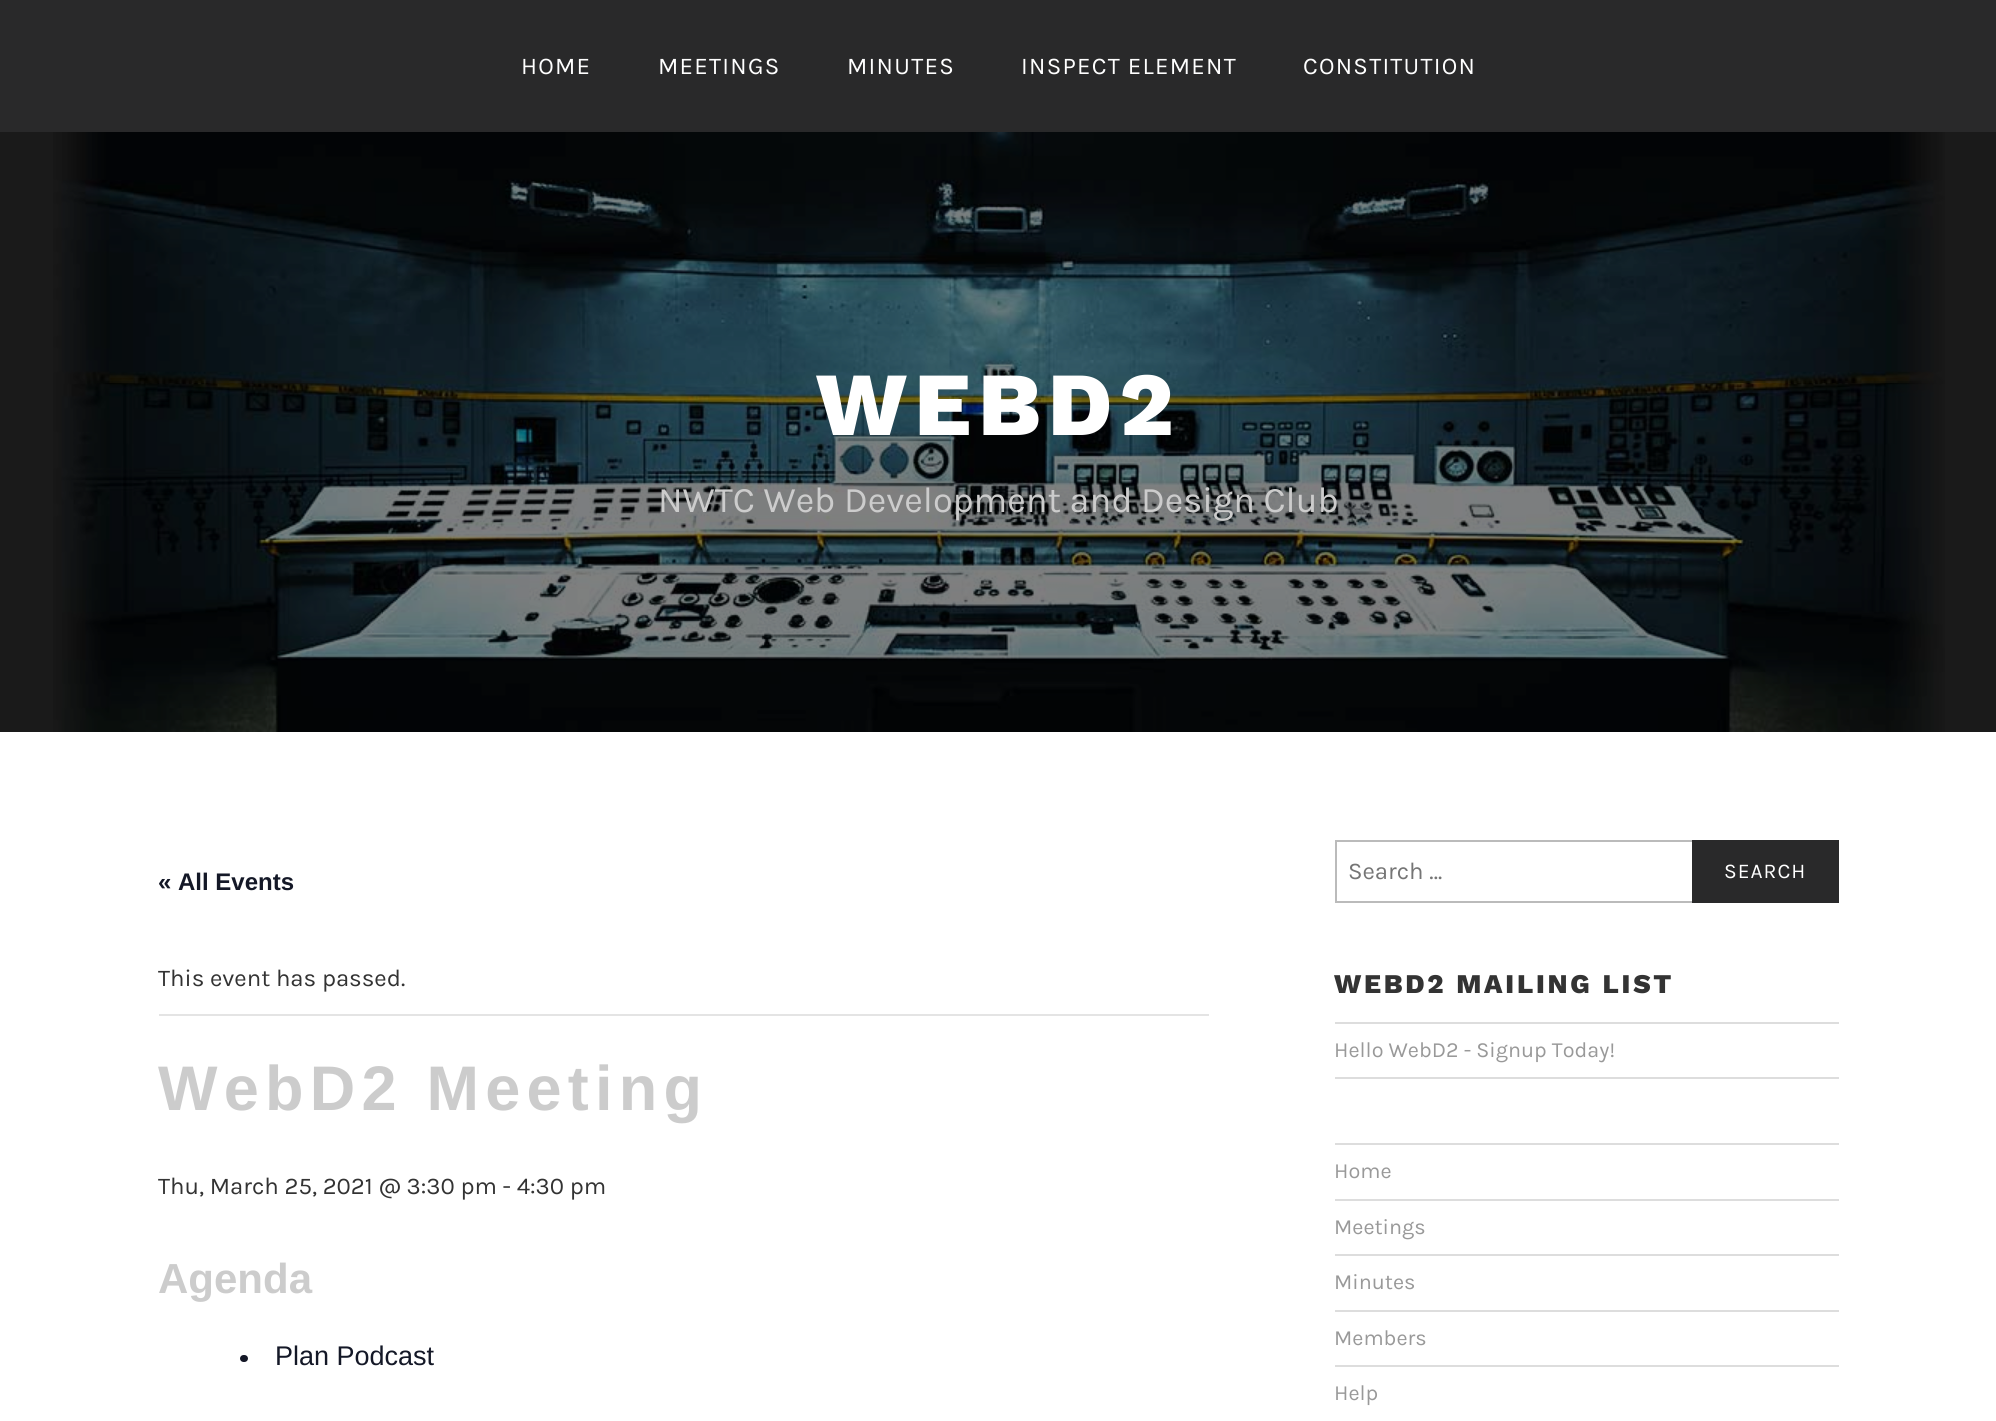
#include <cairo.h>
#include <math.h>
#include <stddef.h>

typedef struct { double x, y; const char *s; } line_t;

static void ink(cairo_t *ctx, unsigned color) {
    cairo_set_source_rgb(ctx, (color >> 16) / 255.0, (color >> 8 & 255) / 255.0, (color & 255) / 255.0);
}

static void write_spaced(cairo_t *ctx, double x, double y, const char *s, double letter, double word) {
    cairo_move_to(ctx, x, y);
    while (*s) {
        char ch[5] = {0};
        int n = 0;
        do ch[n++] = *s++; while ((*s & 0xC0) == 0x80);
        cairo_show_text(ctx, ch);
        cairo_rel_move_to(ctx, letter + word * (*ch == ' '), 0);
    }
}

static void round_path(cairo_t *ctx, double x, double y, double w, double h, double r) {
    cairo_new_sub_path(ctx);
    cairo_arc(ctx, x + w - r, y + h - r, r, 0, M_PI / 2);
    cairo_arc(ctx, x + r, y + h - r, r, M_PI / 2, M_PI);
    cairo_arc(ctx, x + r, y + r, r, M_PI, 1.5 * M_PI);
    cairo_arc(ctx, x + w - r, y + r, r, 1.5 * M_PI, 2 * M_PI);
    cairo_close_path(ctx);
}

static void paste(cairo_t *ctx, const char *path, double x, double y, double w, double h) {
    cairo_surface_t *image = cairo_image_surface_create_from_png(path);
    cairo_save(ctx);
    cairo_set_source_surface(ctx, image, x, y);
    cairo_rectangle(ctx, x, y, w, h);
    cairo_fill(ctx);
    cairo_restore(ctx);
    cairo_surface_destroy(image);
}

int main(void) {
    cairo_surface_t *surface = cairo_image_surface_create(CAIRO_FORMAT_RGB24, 1996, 1421);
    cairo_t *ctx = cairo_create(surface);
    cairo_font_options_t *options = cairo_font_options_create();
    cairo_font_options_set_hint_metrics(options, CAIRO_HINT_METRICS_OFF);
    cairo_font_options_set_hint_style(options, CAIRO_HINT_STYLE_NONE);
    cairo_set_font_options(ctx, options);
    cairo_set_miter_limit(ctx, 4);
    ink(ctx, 0xFFFFFF);
    cairo_paint(ctx);
    ink(ctx, 0x1A1A1A);
    cairo_rectangle(ctx, 0, 132, 1996, 600);
    cairo_fill(ctx);
    ink(ctx, 0x29292A);
    cairo_rectangle(ctx, 0, 0, 1996, 132);
    cairo_fill(ctx);
    cairo_select_font_face(ctx, "Karla", CAIRO_FONT_SLANT_NORMAL, CAIRO_FONT_WEIGHT_NORMAL);
    cairo_set_font_size(ctx, 24);
    ink(ctx, 0xFFFFFF);
    {
        static const line_t items[] = {
            {521, 74, "HOME"},
            {658, 74, "MEETINGS"},
            {847, 74, "MINUTES"},
            {1021, 74, "INSPECT ELEMENT"},
            {1303, 74, "CONSTITUTION"},
        };
        for (size_t i = 0; i < sizeof items / sizeof *items; i++) {
            write_spaced(ctx, items[i].x, items[i].y, items[i].s, 1.25, 0);
        }
    }
    paste(ctx, "media/1.png", 53, 132, 1892, 600);
    cairo_select_font_face(ctx, "Work Sans ExtraBold", CAIRO_FONT_SLANT_NORMAL, CAIRO_FONT_WEIGHT_NORMAL);
    cairo_set_font_size(ctx, 90);
    write_spaced(ctx, 816, 435, "WEBD2", 7.25, 0);
    cairo_select_font_face(ctx, "Karla", CAIRO_FONT_SLANT_NORMAL, CAIRO_FONT_WEIGHT_NORMAL);
    cairo_set_font_size(ctx, 36);
    ink(ctx, 0xCCCCCC);
    cairo_move_to(ctx, 658, 512);
    cairo_show_text(ctx, "NWTC Web Development and Design Club");
    cairo_select_font_face(ctx, "Liberation Sans", CAIRO_FONT_SLANT_NORMAL, CAIRO_FONT_WEIGHT_BOLD);
    cairo_set_font_size(ctx, 24);
    ink(ctx, 0x141827);
    cairo_move_to(ctx, 158, 890);
    cairo_show_text(ctx, "« All Events");
    ink(ctx, 0xE4E4E4);
    cairo_rectangle(ctx, 159, 1014, 1050, 2);
    cairo_fill(ctx);
    cairo_select_font_face(ctx, "Karla", CAIRO_FONT_SLANT_NORMAL, CAIRO_FONT_WEIGHT_NORMAL);
    ink(ctx, 0x333333);
    cairo_move_to(ctx, 158, 986);
    cairo_show_text(ctx, "This event has passed.");
    cairo_select_font_face(ctx, "Liberation Sans", CAIRO_FONT_SLANT_NORMAL, CAIRO_FONT_WEIGHT_BOLD);
    cairo_set_font_size(ctx, 63);
    ink(ctx, 0xCCCCCC);
    write_spaced(ctx, 158, 1110, "WebD2 Meeting", 6.25, 0);
    cairo_select_font_face(ctx, "Karla", CAIRO_FONT_SLANT_NORMAL, CAIRO_FONT_WEIGHT_NORMAL);
    cairo_set_font_size(ctx, 24);
    ink(ctx, 0x333333);
    cairo_move_to(ctx, 158, 1194);
    cairo_show_text(ctx, "Thu, March 25, 2021 @ 3:30 pm - 4:30 pm");
    cairo_select_font_face(ctx, "Liberation Sans", CAIRO_FONT_SLANT_NORMAL, CAIRO_FONT_WEIGHT_BOLD);
    cairo_set_font_size(ctx, 42);
    ink(ctx, 0xCCCCCC);
    cairo_move_to(ctx, 158, 1293);
    cairo_show_text(ctx, "Agenda");
    ink(ctx, 0x141827);
    round_path(ctx, 240, 1355, 8, 7, 3.5);
    cairo_fill(ctx);
    cairo_select_font_face(ctx, "Liberation Sans", CAIRO_FONT_SLANT_NORMAL, CAIRO_FONT_WEIGHT_NORMAL);
    cairo_set_font_size(ctx, 27);
    cairo_move_to(ctx, 275, 1365);
    cairo_show_text(ctx, "Plan Podcast");
    cairo_rectangle(ctx, 1336, 841, 502, 61);
    ink(ctx, 0xBBBBBB);
    cairo_stroke(ctx);
    cairo_select_font_face(ctx, "Karla", CAIRO_FONT_SLANT_NORMAL, CAIRO_FONT_WEIGHT_NORMAL);
    cairo_set_font_size(ctx, 24);
    ink(ctx, 0x757575);
    cairo_move_to(ctx, 1348, 879);
    cairo_show_text(ctx, "Search …");
    ink(ctx, 0x29292A);
    cairo_rectangle(ctx, 1692, 840, 147, 63);
    cairo_fill(ctx);
    cairo_set_font_size(ctx, 21);
    ink(ctx, 0xFFFFFF);
    write_spaced(ctx, 1724, 878, "SEARCH", 1, 0);
    cairo_select_font_face(ctx, "Work Sans ExtraBold", CAIRO_FONT_SLANT_NORMAL, CAIRO_FONT_WEIGHT_NORMAL);
    cairo_set_font_size(ctx, 27);
    ink(ctx, 0x333333);
    write_spaced(ctx, 1334, 993, "WEBD2 MAILING LIST", 2.75, 0);
    ink(ctx, 0xDDDDDD);
    cairo_rectangle(ctx, 1335, 1022, 504, 2);
    cairo_fill(ctx);
    cairo_rectangle(ctx, 1335, 1077, 504, 2);
    cairo_fill(ctx);
    cairo_select_font_face(ctx, "Karla", CAIRO_FONT_SLANT_NORMAL, CAIRO_FONT_WEIGHT_NORMAL);
    cairo_set_font_size(ctx, 21.6);
    ink(ctx, 0x999999);
    cairo_move_to(ctx, 1334, 1057);
    cairo_show_text(ctx, "Hello WebD2 - Signup Today!");
    ink(ctx, 0xDDDDDD);
    cairo_rectangle(ctx, 1335, 1143, 504, 2);
    cairo_fill(ctx);
    cairo_rectangle(ctx, 1335, 1199, 504, 2);
    cairo_fill(ctx);
    ink(ctx, 0x999999);
    cairo_move_to(ctx, 1334, 1178);
    cairo_show_text(ctx, "Home");
    ink(ctx, 0xDDDDDD);
    cairo_rectangle(ctx, 1335, 1254, 504, 2);
    cairo_fill(ctx);
    ink(ctx, 0x999999);
    cairo_move_to(ctx, 1334, 1234);
    cairo_show_text(ctx, "Meetings");
    ink(ctx, 0xDDDDDD);
    cairo_rectangle(ctx, 1335, 1310, 504, 2);
    cairo_fill(ctx);
    ink(ctx, 0x999999);
    cairo_move_to(ctx, 1334, 1289);
    cairo_show_text(ctx, "Minutes");
    ink(ctx, 0xDDDDDD);
    cairo_rectangle(ctx, 1335, 1365, 504, 2);
    cairo_fill(ctx);
    ink(ctx, 0x999999);
    cairo_move_to(ctx, 1334, 1345);
    cairo_show_text(ctx, "Members");
    cairo_move_to(ctx, 1334, 1400);
    cairo_show_text(ctx, "Help");
    cairo_surface_write_to_png(surface, "image.png");
    cairo_font_options_destroy(options);
    cairo_destroy(ctx);
    cairo_surface_destroy(surface);
    return 0;
}
